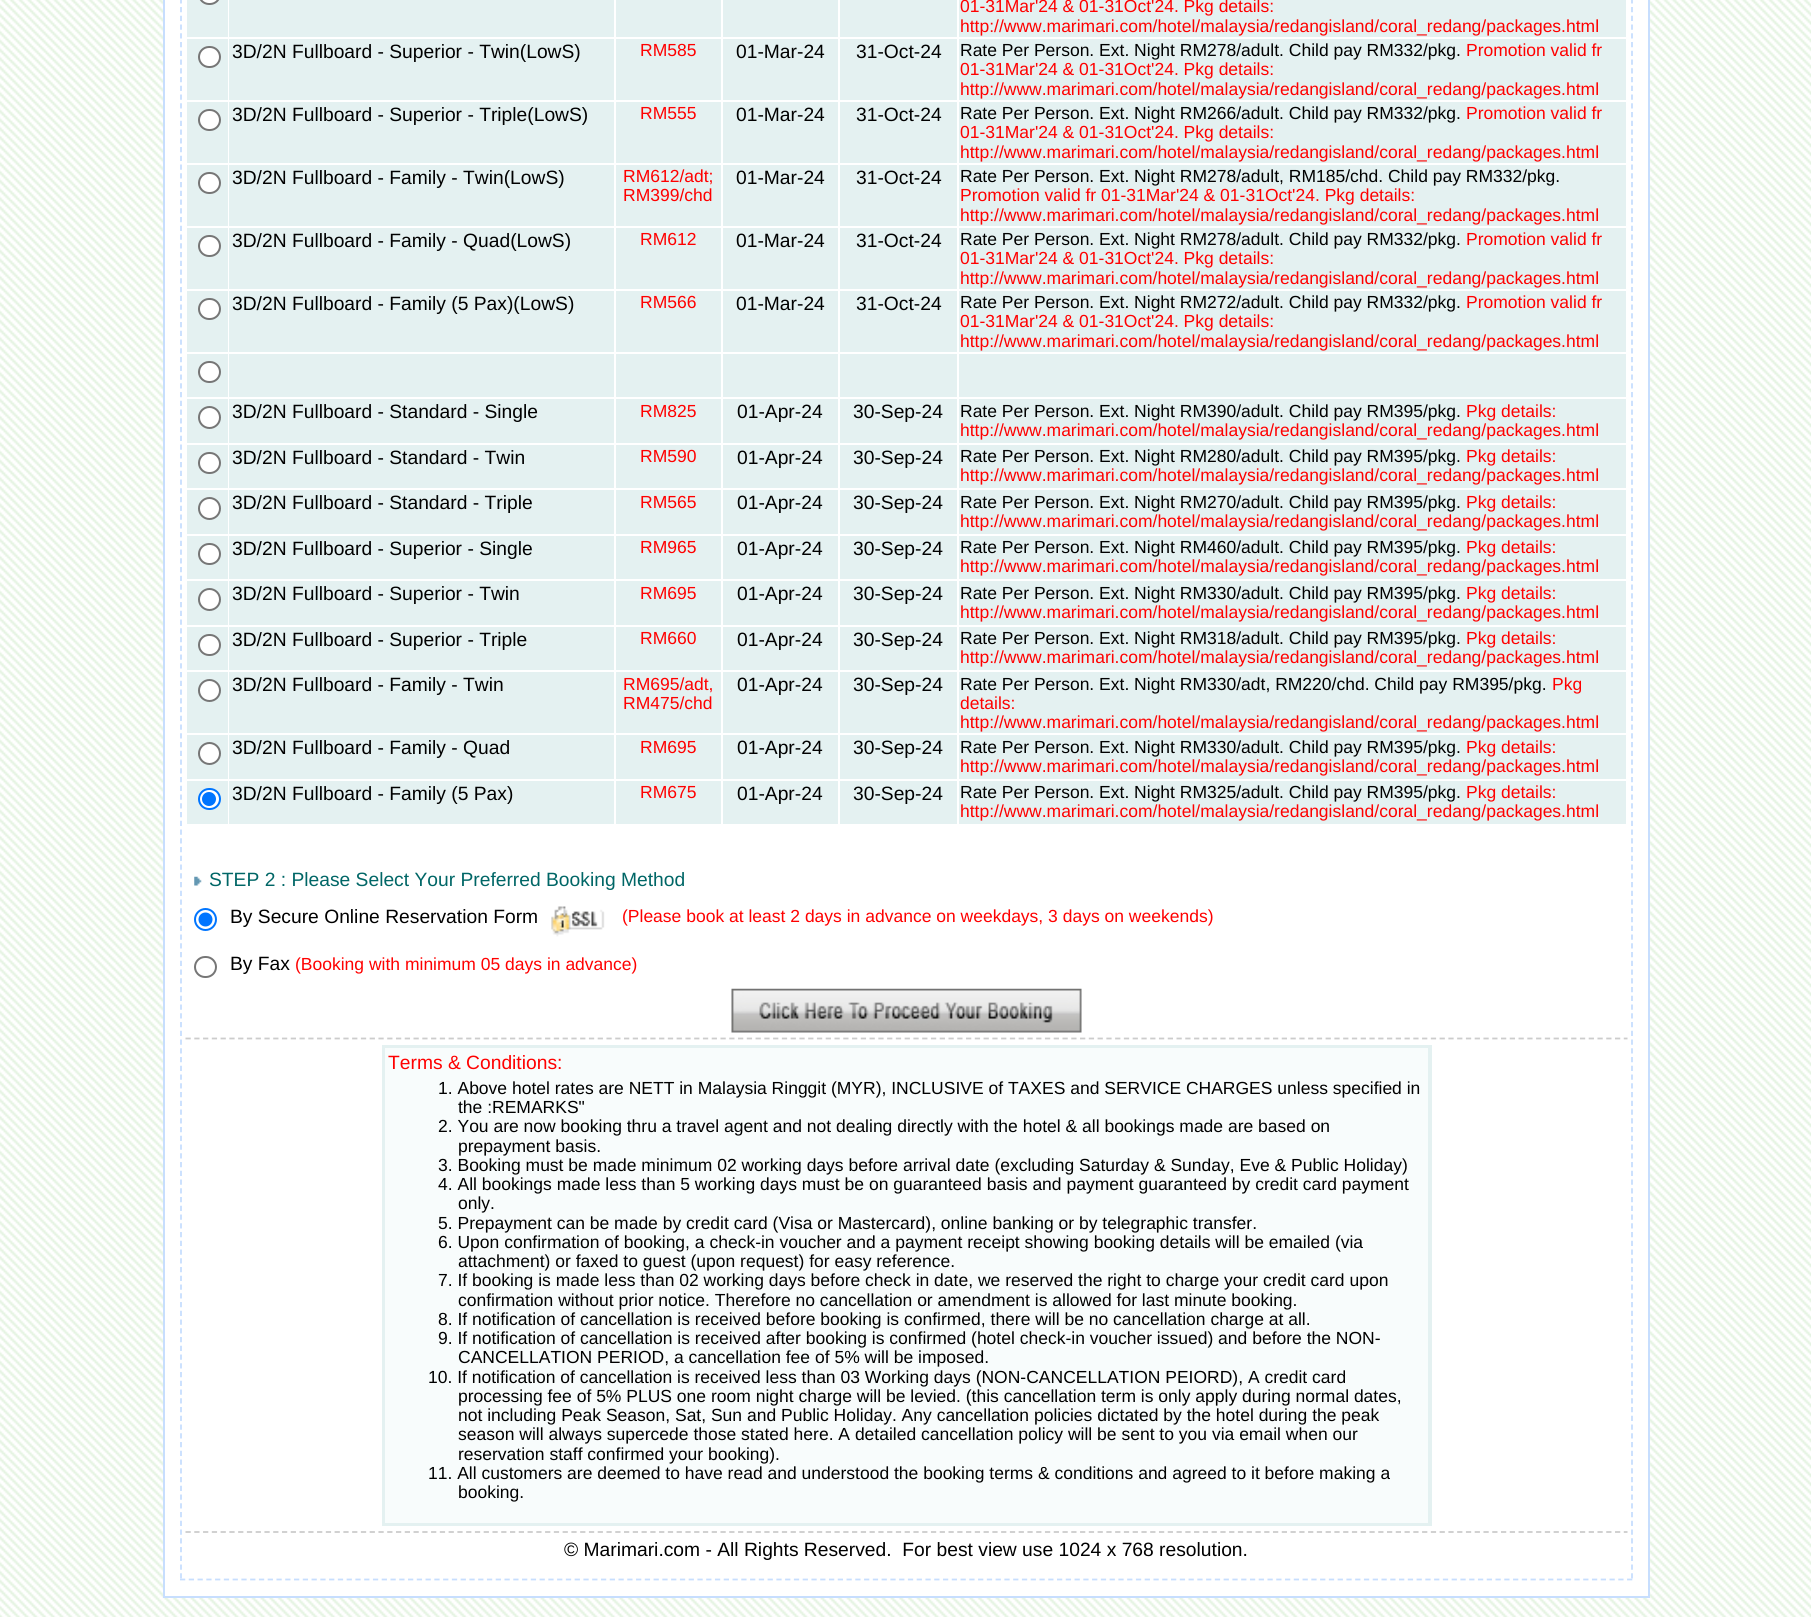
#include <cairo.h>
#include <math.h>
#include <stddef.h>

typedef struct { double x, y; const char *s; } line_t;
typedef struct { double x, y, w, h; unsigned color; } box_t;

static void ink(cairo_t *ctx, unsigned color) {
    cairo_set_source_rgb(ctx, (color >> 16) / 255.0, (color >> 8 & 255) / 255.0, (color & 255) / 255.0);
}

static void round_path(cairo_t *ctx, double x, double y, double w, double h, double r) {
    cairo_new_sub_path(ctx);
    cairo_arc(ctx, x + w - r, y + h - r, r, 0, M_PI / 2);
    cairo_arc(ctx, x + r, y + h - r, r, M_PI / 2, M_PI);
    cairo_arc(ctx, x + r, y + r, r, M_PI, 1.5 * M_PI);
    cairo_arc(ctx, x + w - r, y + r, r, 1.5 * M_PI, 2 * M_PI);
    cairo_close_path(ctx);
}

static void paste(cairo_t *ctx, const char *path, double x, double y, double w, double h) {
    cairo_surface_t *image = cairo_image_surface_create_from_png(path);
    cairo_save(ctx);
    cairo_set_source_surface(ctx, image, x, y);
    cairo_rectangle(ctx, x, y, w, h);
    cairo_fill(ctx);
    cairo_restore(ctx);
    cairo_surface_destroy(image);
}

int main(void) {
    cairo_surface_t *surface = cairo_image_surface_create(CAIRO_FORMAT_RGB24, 1811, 1617);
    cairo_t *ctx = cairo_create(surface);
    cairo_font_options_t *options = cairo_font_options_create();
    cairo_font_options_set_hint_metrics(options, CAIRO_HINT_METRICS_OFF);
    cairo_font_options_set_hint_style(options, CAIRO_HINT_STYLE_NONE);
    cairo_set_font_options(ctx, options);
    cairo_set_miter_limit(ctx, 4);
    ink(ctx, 0xFFFFFF);
    cairo_paint(ctx);
    paste(ctx, "media/1.png", 0, 0, 1811, 1617);
    ink(ctx, 0xFFFFFF);
    cairo_rectangle(ctx, 164, -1, 1485, 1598);
    cairo_fill_preserve(ctx);
    ink(ctx, 0xC7DEFE);
    cairo_stroke(ctx);
    cairo_new_path(ctx);
    cairo_move_to(ctx, 1632, -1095.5);
    cairo_line_to(ctx, 1632, 1580);
    cairo_set_line_width(ctx, 1.8);
    cairo_set_dash(ctx, (double[]){5.25, 3.5}, 2, 0);
    cairo_stroke(ctx);
    cairo_new_path(ctx);
    cairo_move_to(ctx, 180, 1579.5);
    cairo_line_to(ctx, 1633, 1579.5);
    cairo_set_dash(ctx, (double[]){5.25, 3.52}, 2, 0);
    cairo_stroke(ctx);
    cairo_new_path(ctx);
    cairo_move_to(ctx, 181, -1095.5);
    cairo_line_to(ctx, 181, 1580);
    cairo_set_dash(ctx, (double[]){5.25, 3.5}, 2, 0);
    cairo_stroke(ctx);
    ink(ctx, 0xE4F1F1);
    cairo_rectangle(ctx, 187, 0, 41, 37);
    cairo_fill(ctx);
    ink(ctx, 0xFFFFFF);
    round_path(ctx, 199, -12, 21, 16, 10);
    cairo_fill_preserve(ctx);
    ink(ctx, 0x767676);
    cairo_set_line_width(ctx, 2);
    cairo_set_dash(ctx, NULL, 0, 0);
    cairo_stroke(ctx);
    {
        static const box_t items[] = {
            {229, 0, 385, 37, 0xE4F1F1},
            {616, 0, 105, 37, 0xE4F1F1},
            {723, 0, 115, 37, 0xE4F1F1},
            {840, 0, 117, 37, 0xE4F1F1},
            {959, 0, 667, 37, 0xE4F1F1},
        };
        for (size_t i = 0; i < sizeof items / sizeof *items; i++) {
            ink(ctx, items[i].color);
            cairo_rectangle(ctx, items[i].x, items[i].y, items[i].w, items[i].h);
            cairo_fill(ctx);
        }
    }
    cairo_select_font_face(ctx, "Liberation Sans", CAIRO_FONT_SLANT_NORMAL, CAIRO_FONT_WEIGHT_NORMAL);
    cairo_set_font_size(ctx, 17.5);
    ink(ctx, 0xFF0000);
    cairo_move_to(ctx, 960, 12);
    cairo_show_text(ctx, "01-31Mar'24 & 01-31Oct'24. Pkg details:");
    cairo_move_to(ctx, 960, 32);
    cairo_show_text(ctx, "http://www.marimari.com/hotel/malaysia/redangisland/coral_redang/packages.html");
    ink(ctx, 0xE4F1F1);
    cairo_rectangle(ctx, 187, 39, 41, 61);
    cairo_fill(ctx);
    ink(ctx, 0xFFFFFF);
    round_path(ctx, 199, 47, 21, 20, 10);
    cairo_fill_preserve(ctx);
    ink(ctx, 0x767676);
    cairo_stroke(ctx);
    ink(ctx, 0xE4F1F1);
    cairo_rectangle(ctx, 229, 39, 385, 61);
    cairo_fill(ctx);
    cairo_set_font_size(ctx, 19.25);
    ink(ctx, 0x000000);
    cairo_move_to(ctx, 232, 58);
    cairo_show_text(ctx, "3D/2N Fullboard - Superior - Twin(LowS)");
    ink(ctx, 0xE4F1F1);
    cairo_rectangle(ctx, 616, 39, 105, 61);
    cairo_fill(ctx);
    cairo_set_font_size(ctx, 17.5);
    ink(ctx, 0xFF0000);
    cairo_move_to(ctx, 640, 56);
    cairo_show_text(ctx, "RM585");
    ink(ctx, 0xE4F1F1);
    cairo_rectangle(ctx, 723, 39, 115, 61);
    cairo_fill(ctx);
    cairo_set_font_size(ctx, 19.25);
    ink(ctx, 0x000000);
    cairo_move_to(ctx, 736, 58);
    cairo_show_text(ctx, "01-Mar-24");
    ink(ctx, 0xE4F1F1);
    cairo_rectangle(ctx, 840, 39, 117, 61);
    cairo_fill(ctx);
    ink(ctx, 0x000000);
    cairo_move_to(ctx, 856, 58);
    cairo_show_text(ctx, "31-Oct-24");
    ink(ctx, 0xE4F1F1);
    cairo_rectangle(ctx, 959, 39, 667, 61);
    cairo_fill(ctx);
    cairo_set_font_size(ctx, 17.5);
    ink(ctx, 0x000000);
    cairo_move_to(ctx, 960, 56);
    cairo_show_text(ctx, "Rate Per Person. Ext. Night RM278/adult. Child pay RM332/pkg.");
    ink(ctx, 0xFF0000);
    {
        static const line_t items[] = {
            {1466, 56, "Promotion valid fr"},
            {960, 75, "01-31Mar'24 & 01-31Oct'24. Pkg details:"},
            {960, 95, "http://www.marimari.com/hotel/malaysia/redangisland/coral_redang/packages.html"},
        };
        for (size_t i = 0; i < sizeof items / sizeof *items; i++) {
            cairo_move_to(ctx, items[i].x, items[i].y);
            cairo_show_text(ctx, items[i].s);
        }
    }
    ink(ctx, 0xE4F1F1);
    cairo_rectangle(ctx, 187, 102, 41, 61);
    cairo_fill(ctx);
    ink(ctx, 0xFFFFFF);
    round_path(ctx, 199, 110, 21, 20, 10);
    cairo_fill_preserve(ctx);
    ink(ctx, 0x767676);
    cairo_stroke(ctx);
    ink(ctx, 0xE4F1F1);
    cairo_rectangle(ctx, 229, 102, 385, 61);
    cairo_fill(ctx);
    cairo_set_font_size(ctx, 19.25);
    ink(ctx, 0x000000);
    cairo_move_to(ctx, 232, 121);
    cairo_show_text(ctx, "3D/2N Fullboard - Superior - Triple(LowS)");
    ink(ctx, 0xE4F1F1);
    cairo_rectangle(ctx, 616, 102, 105, 61);
    cairo_fill(ctx);
    cairo_set_font_size(ctx, 17.5);
    ink(ctx, 0xFF0000);
    cairo_move_to(ctx, 640, 119);
    cairo_show_text(ctx, "RM555");
    ink(ctx, 0xE4F1F1);
    cairo_rectangle(ctx, 723, 102, 115, 61);
    cairo_fill(ctx);
    cairo_set_font_size(ctx, 19.25);
    ink(ctx, 0x000000);
    cairo_move_to(ctx, 736, 121);
    cairo_show_text(ctx, "01-Mar-24");
    ink(ctx, 0xE4F1F1);
    cairo_rectangle(ctx, 840, 102, 117, 61);
    cairo_fill(ctx);
    ink(ctx, 0x000000);
    cairo_move_to(ctx, 856, 121);
    cairo_show_text(ctx, "31-Oct-24");
    ink(ctx, 0xE4F1F1);
    cairo_rectangle(ctx, 959, 102, 667, 61);
    cairo_fill(ctx);
    cairo_set_font_size(ctx, 17.5);
    ink(ctx, 0x000000);
    cairo_move_to(ctx, 960, 119);
    cairo_show_text(ctx, "Rate Per Person. Ext. Night RM266/adult. Child pay RM332/pkg.");
    ink(ctx, 0xFF0000);
    {
        static const line_t items[] = {
            {1466, 119, "Promotion valid fr"},
            {960, 138, "01-31Mar'24 & 01-31Oct'24. Pkg details:"},
            {960, 158, "http://www.marimari.com/hotel/malaysia/redangisland/coral_redang/packages.html"},
        };
        for (size_t i = 0; i < sizeof items / sizeof *items; i++) {
            cairo_move_to(ctx, items[i].x, items[i].y);
            cairo_show_text(ctx, items[i].s);
        }
    }
    ink(ctx, 0xE4F1F1);
    cairo_rectangle(ctx, 187, 165, 41, 61);
    cairo_fill(ctx);
    ink(ctx, 0xFFFFFF);
    round_path(ctx, 199, 173, 21, 20, 10);
    cairo_fill_preserve(ctx);
    ink(ctx, 0x767676);
    cairo_stroke(ctx);
    ink(ctx, 0xE4F1F1);
    cairo_rectangle(ctx, 229, 165, 385, 61);
    cairo_fill(ctx);
    cairo_set_font_size(ctx, 19.25);
    ink(ctx, 0x000000);
    cairo_move_to(ctx, 232, 184);
    cairo_show_text(ctx, "3D/2N Fullboard - Family - Twin(LowS)");
    ink(ctx, 0xE4F1F1);
    cairo_rectangle(ctx, 616, 165, 105, 61);
    cairo_fill(ctx);
    cairo_set_font_size(ctx, 17.5);
    ink(ctx, 0xFF0000);
    cairo_move_to(ctx, 623, 182);
    cairo_show_text(ctx, "RM612/adt;");
    cairo_move_to(ctx, 623, 201);
    cairo_show_text(ctx, "RM399/chd");
    ink(ctx, 0xE4F1F1);
    cairo_rectangle(ctx, 723, 165, 115, 61);
    cairo_fill(ctx);
    cairo_set_font_size(ctx, 19.25);
    ink(ctx, 0x000000);
    cairo_move_to(ctx, 736, 184);
    cairo_show_text(ctx, "01-Mar-24");
    ink(ctx, 0xE4F1F1);
    cairo_rectangle(ctx, 840, 165, 117, 61);
    cairo_fill(ctx);
    ink(ctx, 0x000000);
    cairo_move_to(ctx, 856, 184);
    cairo_show_text(ctx, "31-Oct-24");
    ink(ctx, 0xE4F1F1);
    cairo_rectangle(ctx, 959, 165, 667, 61);
    cairo_fill(ctx);
    cairo_set_font_size(ctx, 17.5);
    ink(ctx, 0x000000);
    cairo_move_to(ctx, 960, 182);
    cairo_show_text(ctx, "Rate Per Person. Ext. Night RM278/adult, RM185/chd. Child pay RM332/pkg.");
    ink(ctx, 0xFF0000);
    cairo_move_to(ctx, 960, 201);
    cairo_show_text(ctx, "Promotion valid fr 01-31Mar'24 & 01-31Oct'24. Pkg details:");
    cairo_move_to(ctx, 960, 221);
    cairo_show_text(ctx, "http://www.marimari.com/hotel/malaysia/redangisland/coral_redang/packages.html");
    ink(ctx, 0xE4F1F1);
    cairo_rectangle(ctx, 187, 228, 41, 61);
    cairo_fill(ctx);
    ink(ctx, 0xFFFFFF);
    round_path(ctx, 199, 236, 21, 20, 10);
    cairo_fill_preserve(ctx);
    ink(ctx, 0x767676);
    cairo_stroke(ctx);
    ink(ctx, 0xE4F1F1);
    cairo_rectangle(ctx, 229, 228, 385, 61);
    cairo_fill(ctx);
    cairo_set_font_size(ctx, 19.25);
    ink(ctx, 0x000000);
    cairo_move_to(ctx, 232, 247);
    cairo_show_text(ctx, "3D/2N Fullboard - Family - Quad(LowS)");
    ink(ctx, 0xE4F1F1);
    cairo_rectangle(ctx, 616, 228, 105, 61);
    cairo_fill(ctx);
    cairo_set_font_size(ctx, 17.5);
    ink(ctx, 0xFF0000);
    cairo_move_to(ctx, 640, 245);
    cairo_show_text(ctx, "RM612");
    ink(ctx, 0xE4F1F1);
    cairo_rectangle(ctx, 723, 228, 115, 61);
    cairo_fill(ctx);
    cairo_set_font_size(ctx, 19.25);
    ink(ctx, 0x000000);
    cairo_move_to(ctx, 736, 247);
    cairo_show_text(ctx, "01-Mar-24");
    ink(ctx, 0xE4F1F1);
    cairo_rectangle(ctx, 840, 228, 117, 61);
    cairo_fill(ctx);
    ink(ctx, 0x000000);
    cairo_move_to(ctx, 856, 247);
    cairo_show_text(ctx, "31-Oct-24");
    ink(ctx, 0xE4F1F1);
    cairo_rectangle(ctx, 959, 228, 667, 61);
    cairo_fill(ctx);
    cairo_set_font_size(ctx, 17.5);
    ink(ctx, 0x000000);
    cairo_move_to(ctx, 960, 245);
    cairo_show_text(ctx, "Rate Per Person. Ext. Night RM278/adult. Child pay RM332/pkg.");
    ink(ctx, 0xFF0000);
    {
        static const line_t items[] = {
            {1466, 245, "Promotion valid fr"},
            {960, 264, "01-31Mar'24 & 01-31Oct'24. Pkg details:"},
            {960, 284, "http://www.marimari.com/hotel/malaysia/redangisland/coral_redang/packages.html"},
        };
        for (size_t i = 0; i < sizeof items / sizeof *items; i++) {
            cairo_move_to(ctx, items[i].x, items[i].y);
            cairo_show_text(ctx, items[i].s);
        }
    }
    ink(ctx, 0xE4F1F1);
    cairo_rectangle(ctx, 187, 291, 41, 61);
    cairo_fill(ctx);
    ink(ctx, 0xFFFFFF);
    round_path(ctx, 199, 299, 21, 20, 10);
    cairo_fill_preserve(ctx);
    ink(ctx, 0x767676);
    cairo_stroke(ctx);
    ink(ctx, 0xE4F1F1);
    cairo_rectangle(ctx, 229, 291, 385, 61);
    cairo_fill(ctx);
    cairo_set_font_size(ctx, 19.25);
    ink(ctx, 0x000000);
    cairo_move_to(ctx, 232, 310);
    cairo_show_text(ctx, "3D/2N Fullboard - Family (5 Pax)(LowS)");
    ink(ctx, 0xE4F1F1);
    cairo_rectangle(ctx, 616, 291, 105, 61);
    cairo_fill(ctx);
    cairo_set_font_size(ctx, 17.5);
    ink(ctx, 0xFF0000);
    cairo_move_to(ctx, 640, 308);
    cairo_show_text(ctx, "RM566");
    ink(ctx, 0xE4F1F1);
    cairo_rectangle(ctx, 723, 291, 115, 61);
    cairo_fill(ctx);
    cairo_set_font_size(ctx, 19.25);
    ink(ctx, 0x000000);
    cairo_move_to(ctx, 736, 310);
    cairo_show_text(ctx, "01-Mar-24");
    ink(ctx, 0xE4F1F1);
    cairo_rectangle(ctx, 840, 291, 117, 61);
    cairo_fill(ctx);
    ink(ctx, 0x000000);
    cairo_move_to(ctx, 856, 310);
    cairo_show_text(ctx, "31-Oct-24");
    ink(ctx, 0xE4F1F1);
    cairo_rectangle(ctx, 959, 291, 667, 61);
    cairo_fill(ctx);
    cairo_set_font_size(ctx, 17.5);
    ink(ctx, 0x000000);
    cairo_move_to(ctx, 960, 308);
    cairo_show_text(ctx, "Rate Per Person. Ext. Night RM272/adult. Child pay RM332/pkg.");
    ink(ctx, 0xFF0000);
    {
        static const line_t items[] = {
            {1466, 308, "Promotion valid fr"},
            {960, 327, "01-31Mar'24 & 01-31Oct'24. Pkg details:"},
            {960, 347, "http://www.marimari.com/hotel/malaysia/redangisland/coral_redang/packages.html"},
        };
        for (size_t i = 0; i < sizeof items / sizeof *items; i++) {
            cairo_move_to(ctx, items[i].x, items[i].y);
            cairo_show_text(ctx, items[i].s);
        }
    }
    ink(ctx, 0xE4F1F1);
    cairo_rectangle(ctx, 187, 354, 41, 43);
    cairo_fill(ctx);
    ink(ctx, 0xFFFFFF);
    round_path(ctx, 199, 362, 21, 20, 10);
    cairo_fill_preserve(ctx);
    ink(ctx, 0x767676);
    cairo_stroke(ctx);
    {
        static const box_t items[] = {
            {229, 354, 385, 43, 0xE4F1F1},
            {616, 354, 105, 43, 0xE4F1F1},
            {723, 354, 115, 43, 0xE4F1F1},
            {840, 354, 117, 43, 0xE4F1F1},
            {959, 354, 667, 43, 0xE4F1F1},
            {187, 399, 41, 44, 0xE4F1F1},
        };
        for (size_t i = 0; i < sizeof items / sizeof *items; i++) {
            ink(ctx, items[i].color);
            cairo_rectangle(ctx, items[i].x, items[i].y, items[i].w, items[i].h);
            cairo_fill(ctx);
        }
    }
    ink(ctx, 0xFFFFFF);
    cairo_arc(ctx, 209.5, 417.5, 10.5, 0, 2 * M_PI);
    cairo_fill_preserve(ctx);
    ink(ctx, 0x767676);
    cairo_stroke(ctx);
    ink(ctx, 0xE4F1F1);
    cairo_rectangle(ctx, 229, 399, 385, 44);
    cairo_fill(ctx);
    cairo_set_font_size(ctx, 19.25);
    ink(ctx, 0x000000);
    cairo_move_to(ctx, 232, 418);
    cairo_show_text(ctx, "3D/2N Fullboard - Standard - Single");
    ink(ctx, 0xE4F1F1);
    cairo_rectangle(ctx, 616, 399, 105, 44);
    cairo_fill(ctx);
    cairo_set_font_size(ctx, 17.5);
    ink(ctx, 0xFF0000);
    cairo_move_to(ctx, 640, 417);
    cairo_show_text(ctx, "RM825");
    ink(ctx, 0xE4F1F1);
    cairo_rectangle(ctx, 723, 399, 115, 44);
    cairo_fill(ctx);
    cairo_set_font_size(ctx, 19.25);
    ink(ctx, 0x000000);
    cairo_move_to(ctx, 737, 418);
    cairo_show_text(ctx, "01-Apr-24");
    ink(ctx, 0xE4F1F1);
    cairo_rectangle(ctx, 840, 399, 117, 44);
    cairo_fill(ctx);
    ink(ctx, 0x000000);
    cairo_move_to(ctx, 853, 418);
    cairo_show_text(ctx, "30-Sep-24");
    ink(ctx, 0xE4F1F1);
    cairo_rectangle(ctx, 959, 399, 667, 44);
    cairo_fill(ctx);
    cairo_set_font_size(ctx, 17.5);
    ink(ctx, 0x000000);
    cairo_move_to(ctx, 960, 417);
    cairo_show_text(ctx, "Rate Per Person. Ext. Night RM390/adult. Child pay RM395/pkg.");
    ink(ctx, 0xFF0000);
    cairo_move_to(ctx, 1466, 417);
    cairo_show_text(ctx, "Pkg details:");
    cairo_move_to(ctx, 960, 436);
    cairo_show_text(ctx, "http://www.marimari.com/hotel/malaysia/redangisland/coral_redang/packages.html");
    ink(ctx, 0xE4F1F1);
    cairo_rectangle(ctx, 187, 445, 41, 43);
    cairo_fill(ctx);
    ink(ctx, 0xFFFFFF);
    round_path(ctx, 199, 453, 21, 20, 10);
    cairo_fill_preserve(ctx);
    ink(ctx, 0x767676);
    cairo_stroke(ctx);
    ink(ctx, 0xE4F1F1);
    cairo_rectangle(ctx, 229, 445, 385, 43);
    cairo_fill(ctx);
    cairo_set_font_size(ctx, 19.25);
    ink(ctx, 0x000000);
    cairo_move_to(ctx, 232, 464);
    cairo_show_text(ctx, "3D/2N Fullboard - Standard - Twin");
    ink(ctx, 0xE4F1F1);
    cairo_rectangle(ctx, 616, 445, 105, 43);
    cairo_fill(ctx);
    cairo_set_font_size(ctx, 17.5);
    ink(ctx, 0xFF0000);
    cairo_move_to(ctx, 640, 462);
    cairo_show_text(ctx, "RM590");
    ink(ctx, 0xE4F1F1);
    cairo_rectangle(ctx, 723, 445, 115, 43);
    cairo_fill(ctx);
    cairo_set_font_size(ctx, 19.25);
    ink(ctx, 0x000000);
    cairo_move_to(ctx, 737, 464);
    cairo_show_text(ctx, "01-Apr-24");
    ink(ctx, 0xE4F1F1);
    cairo_rectangle(ctx, 840, 445, 117, 43);
    cairo_fill(ctx);
    ink(ctx, 0x000000);
    cairo_move_to(ctx, 853, 464);
    cairo_show_text(ctx, "30-Sep-24");
    ink(ctx, 0xE4F1F1);
    cairo_rectangle(ctx, 959, 445, 667, 43);
    cairo_fill(ctx);
    cairo_set_font_size(ctx, 17.5);
    ink(ctx, 0x000000);
    cairo_move_to(ctx, 960, 462);
    cairo_show_text(ctx, "Rate Per Person. Ext. Night RM280/adult. Child pay RM395/pkg.");
    ink(ctx, 0xFF0000);
    cairo_move_to(ctx, 1466, 462);
    cairo_show_text(ctx, "Pkg details:");
    cairo_move_to(ctx, 960, 481);
    cairo_show_text(ctx, "http://www.marimari.com/hotel/malaysia/redangisland/coral_redang/packages.html");
    ink(ctx, 0xE4F1F1);
    cairo_rectangle(ctx, 187, 490, 41, 44);
    cairo_fill(ctx);
    ink(ctx, 0xFFFFFF);
    cairo_arc(ctx, 209.5, 508.5, 10.5, 0, 2 * M_PI);
    cairo_fill_preserve(ctx);
    ink(ctx, 0x767676);
    cairo_stroke(ctx);
    ink(ctx, 0xE4F1F1);
    cairo_rectangle(ctx, 229, 490, 385, 44);
    cairo_fill(ctx);
    cairo_set_font_size(ctx, 19.25);
    ink(ctx, 0x000000);
    cairo_move_to(ctx, 232, 509);
    cairo_show_text(ctx, "3D/2N Fullboard - Standard - Triple");
    ink(ctx, 0xE4F1F1);
    cairo_rectangle(ctx, 616, 490, 105, 44);
    cairo_fill(ctx);
    cairo_set_font_size(ctx, 17.5);
    ink(ctx, 0xFF0000);
    cairo_move_to(ctx, 640, 508);
    cairo_show_text(ctx, "RM565");
    ink(ctx, 0xE4F1F1);
    cairo_rectangle(ctx, 723, 490, 115, 44);
    cairo_fill(ctx);
    cairo_set_font_size(ctx, 19.25);
    ink(ctx, 0x000000);
    cairo_move_to(ctx, 737, 509);
    cairo_show_text(ctx, "01-Apr-24");
    ink(ctx, 0xE4F1F1);
    cairo_rectangle(ctx, 840, 490, 117, 44);
    cairo_fill(ctx);
    ink(ctx, 0x000000);
    cairo_move_to(ctx, 853, 509);
    cairo_show_text(ctx, "30-Sep-24");
    ink(ctx, 0xE4F1F1);
    cairo_rectangle(ctx, 959, 490, 667, 44);
    cairo_fill(ctx);
    cairo_set_font_size(ctx, 17.5);
    ink(ctx, 0x000000);
    cairo_move_to(ctx, 960, 508);
    cairo_show_text(ctx, "Rate Per Person. Ext. Night RM270/adult. Child pay RM395/pkg.");
    ink(ctx, 0xFF0000);
    cairo_move_to(ctx, 1466, 508);
    cairo_show_text(ctx, "Pkg details:");
    cairo_move_to(ctx, 960, 527);
    cairo_show_text(ctx, "http://www.marimari.com/hotel/malaysia/redangisland/coral_redang/packages.html");
    ink(ctx, 0xE4F1F1);
    cairo_rectangle(ctx, 187, 536, 41, 43);
    cairo_fill(ctx);
    ink(ctx, 0xFFFFFF);
    round_path(ctx, 199, 544, 21, 20, 10);
    cairo_fill_preserve(ctx);
    ink(ctx, 0x767676);
    cairo_stroke(ctx);
    ink(ctx, 0xE4F1F1);
    cairo_rectangle(ctx, 229, 536, 385, 43);
    cairo_fill(ctx);
    cairo_set_font_size(ctx, 19.25);
    ink(ctx, 0x000000);
    cairo_move_to(ctx, 232, 555);
    cairo_show_text(ctx, "3D/2N Fullboard - Superior - Single");
    ink(ctx, 0xE4F1F1);
    cairo_rectangle(ctx, 616, 536, 105, 43);
    cairo_fill(ctx);
    cairo_set_font_size(ctx, 17.5);
    ink(ctx, 0xFF0000);
    cairo_move_to(ctx, 640, 553);
    cairo_show_text(ctx, "RM965");
    ink(ctx, 0xE4F1F1);
    cairo_rectangle(ctx, 723, 536, 115, 43);
    cairo_fill(ctx);
    cairo_set_font_size(ctx, 19.25);
    ink(ctx, 0x000000);
    cairo_move_to(ctx, 737, 555);
    cairo_show_text(ctx, "01-Apr-24");
    ink(ctx, 0xE4F1F1);
    cairo_rectangle(ctx, 840, 536, 117, 43);
    cairo_fill(ctx);
    ink(ctx, 0x000000);
    cairo_move_to(ctx, 853, 555);
    cairo_show_text(ctx, "30-Sep-24");
    ink(ctx, 0xE4F1F1);
    cairo_rectangle(ctx, 959, 536, 667, 43);
    cairo_fill(ctx);
    cairo_set_font_size(ctx, 17.5);
    ink(ctx, 0x000000);
    cairo_move_to(ctx, 960, 553);
    cairo_show_text(ctx, "Rate Per Person. Ext. Night RM460/adult. Child pay RM395/pkg.");
    ink(ctx, 0xFF0000);
    cairo_move_to(ctx, 1466, 553);
    cairo_show_text(ctx, "Pkg details:");
    cairo_move_to(ctx, 960, 572);
    cairo_show_text(ctx, "http://www.marimari.com/hotel/malaysia/redangisland/coral_redang/packages.html");
    ink(ctx, 0xE4F1F1);
    cairo_rectangle(ctx, 187, 581, 41, 44);
    cairo_fill(ctx);
    ink(ctx, 0xFFFFFF);
    cairo_arc(ctx, 209.5, 599.5, 10.5, 0, 2 * M_PI);
    cairo_fill_preserve(ctx);
    ink(ctx, 0x767676);
    cairo_stroke(ctx);
    ink(ctx, 0xE4F1F1);
    cairo_rectangle(ctx, 229, 581, 385, 44);
    cairo_fill(ctx);
    cairo_set_font_size(ctx, 19.25);
    ink(ctx, 0x000000);
    cairo_move_to(ctx, 232, 600);
    cairo_show_text(ctx, "3D/2N Fullboard - Superior - Twin");
    ink(ctx, 0xE4F1F1);
    cairo_rectangle(ctx, 616, 581, 105, 44);
    cairo_fill(ctx);
    cairo_set_font_size(ctx, 17.5);
    ink(ctx, 0xFF0000);
    cairo_move_to(ctx, 640, 599);
    cairo_show_text(ctx, "RM695");
    ink(ctx, 0xE4F1F1);
    cairo_rectangle(ctx, 723, 581, 115, 44);
    cairo_fill(ctx);
    cairo_set_font_size(ctx, 19.25);
    ink(ctx, 0x000000);
    cairo_move_to(ctx, 737, 600);
    cairo_show_text(ctx, "01-Apr-24");
    ink(ctx, 0xE4F1F1);
    cairo_rectangle(ctx, 840, 581, 117, 44);
    cairo_fill(ctx);
    ink(ctx, 0x000000);
    cairo_move_to(ctx, 853, 600);
    cairo_show_text(ctx, "30-Sep-24");
    ink(ctx, 0xE4F1F1);
    cairo_rectangle(ctx, 959, 581, 667, 44);
    cairo_fill(ctx);
    cairo_set_font_size(ctx, 17.5);
    ink(ctx, 0x000000);
    cairo_move_to(ctx, 960, 599);
    cairo_show_text(ctx, "Rate Per Person. Ext. Night RM330/adult. Child pay RM395/pkg.");
    ink(ctx, 0xFF0000);
    cairo_move_to(ctx, 1466, 599);
    cairo_show_text(ctx, "Pkg details:");
    cairo_move_to(ctx, 960, 618);
    cairo_show_text(ctx, "http://www.marimari.com/hotel/malaysia/redangisland/coral_redang/packages.html");
    ink(ctx, 0xE4F1F1);
    cairo_rectangle(ctx, 187, 627, 41, 43);
    cairo_fill(ctx);
    ink(ctx, 0xFFFFFF);
    round_path(ctx, 199, 635, 21, 20, 10);
    cairo_fill_preserve(ctx);
    ink(ctx, 0x767676);
    cairo_stroke(ctx);
    ink(ctx, 0xE4F1F1);
    cairo_rectangle(ctx, 229, 627, 385, 43);
    cairo_fill(ctx);
    cairo_set_font_size(ctx, 19.25);
    ink(ctx, 0x000000);
    cairo_move_to(ctx, 232, 646);
    cairo_show_text(ctx, "3D/2N Fullboard - Superior - Triple");
    ink(ctx, 0xE4F1F1);
    cairo_rectangle(ctx, 616, 627, 105, 43);
    cairo_fill(ctx);
    cairo_set_font_size(ctx, 17.5);
    ink(ctx, 0xFF0000);
    cairo_move_to(ctx, 640, 644);
    cairo_show_text(ctx, "RM660");
    ink(ctx, 0xE4F1F1);
    cairo_rectangle(ctx, 723, 627, 115, 43);
    cairo_fill(ctx);
    cairo_set_font_size(ctx, 19.25);
    ink(ctx, 0x000000);
    cairo_move_to(ctx, 737, 646);
    cairo_show_text(ctx, "01-Apr-24");
    ink(ctx, 0xE4F1F1);
    cairo_rectangle(ctx, 840, 627, 117, 43);
    cairo_fill(ctx);
    ink(ctx, 0x000000);
    cairo_move_to(ctx, 853, 646);
    cairo_show_text(ctx, "30-Sep-24");
    ink(ctx, 0xE4F1F1);
    cairo_rectangle(ctx, 959, 627, 667, 43);
    cairo_fill(ctx);
    cairo_set_font_size(ctx, 17.5);
    ink(ctx, 0x000000);
    cairo_move_to(ctx, 960, 644);
    cairo_show_text(ctx, "Rate Per Person. Ext. Night RM318/adult. Child pay RM395/pkg.");
    ink(ctx, 0xFF0000);
    cairo_move_to(ctx, 1466, 644);
    cairo_show_text(ctx, "Pkg details:");
    cairo_move_to(ctx, 960, 663);
    cairo_show_text(ctx, "http://www.marimari.com/hotel/malaysia/redangisland/coral_redang/packages.html");
    ink(ctx, 0xE4F1F1);
    cairo_rectangle(ctx, 187, 672, 41, 61);
    cairo_fill(ctx);
    ink(ctx, 0xFFFFFF);
    cairo_arc(ctx, 209.5, 690.5, 10.5, 0, 2 * M_PI);
    cairo_fill_preserve(ctx);
    ink(ctx, 0x767676);
    cairo_stroke(ctx);
    ink(ctx, 0xE4F1F1);
    cairo_rectangle(ctx, 229, 672, 385, 61);
    cairo_fill(ctx);
    cairo_set_font_size(ctx, 19.25);
    ink(ctx, 0x000000);
    cairo_move_to(ctx, 232, 691);
    cairo_show_text(ctx, "3D/2N Fullboard - Family - Twin");
    ink(ctx, 0xE4F1F1);
    cairo_rectangle(ctx, 616, 672, 105, 61);
    cairo_fill(ctx);
    cairo_set_font_size(ctx, 17.5);
    ink(ctx, 0xFF0000);
    cairo_move_to(ctx, 623, 690);
    cairo_show_text(ctx, "RM695/adt,");
    cairo_move_to(ctx, 623, 709);
    cairo_show_text(ctx, "RM475/chd");
    ink(ctx, 0xE4F1F1);
    cairo_rectangle(ctx, 723, 672, 115, 61);
    cairo_fill(ctx);
    cairo_set_font_size(ctx, 19.25);
    ink(ctx, 0x000000);
    cairo_move_to(ctx, 737, 691);
    cairo_show_text(ctx, "01-Apr-24");
    ink(ctx, 0xE4F1F1);
    cairo_rectangle(ctx, 840, 672, 117, 61);
    cairo_fill(ctx);
    ink(ctx, 0x000000);
    cairo_move_to(ctx, 853, 691);
    cairo_show_text(ctx, "30-Sep-24");
    ink(ctx, 0xE4F1F1);
    cairo_rectangle(ctx, 959, 672, 667, 61);
    cairo_fill(ctx);
    cairo_set_font_size(ctx, 17.5);
    ink(ctx, 0x000000);
    cairo_move_to(ctx, 960, 690);
    cairo_show_text(ctx, "Rate Per Person. Ext. Night RM330/adt, RM220/chd. Child pay RM395/pkg.");
    ink(ctx, 0xFF0000);
    {
        static const line_t items[] = {
            {1552, 690, "Pkg"},
            {960, 709, "details:"},
            {960, 728, "http://www.marimari.com/hotel/malaysia/redangisland/coral_redang/packages.html"},
        };
        for (size_t i = 0; i < sizeof items / sizeof *items; i++) {
            cairo_move_to(ctx, items[i].x, items[i].y);
            cairo_show_text(ctx, items[i].s);
        }
    }
    ink(ctx, 0xE4F1F1);
    cairo_rectangle(ctx, 187, 735, 41, 44);
    cairo_fill(ctx);
    ink(ctx, 0xFFFFFF);
    cairo_arc(ctx, 209.5, 753.5, 10.5, 0, 2 * M_PI);
    cairo_fill_preserve(ctx);
    ink(ctx, 0x767676);
    cairo_stroke(ctx);
    ink(ctx, 0xE4F1F1);
    cairo_rectangle(ctx, 229, 735, 385, 44);
    cairo_fill(ctx);
    cairo_set_font_size(ctx, 19.25);
    ink(ctx, 0x000000);
    cairo_move_to(ctx, 232, 754);
    cairo_show_text(ctx, "3D/2N Fullboard - Family - Quad");
    ink(ctx, 0xE4F1F1);
    cairo_rectangle(ctx, 616, 735, 105, 44);
    cairo_fill(ctx);
    cairo_set_font_size(ctx, 17.5);
    ink(ctx, 0xFF0000);
    cairo_move_to(ctx, 640, 753);
    cairo_show_text(ctx, "RM695");
    ink(ctx, 0xE4F1F1);
    cairo_rectangle(ctx, 723, 735, 115, 44);
    cairo_fill(ctx);
    cairo_set_font_size(ctx, 19.25);
    ink(ctx, 0x000000);
    cairo_move_to(ctx, 737, 754);
    cairo_show_text(ctx, "01-Apr-24");
    ink(ctx, 0xE4F1F1);
    cairo_rectangle(ctx, 840, 735, 117, 44);
    cairo_fill(ctx);
    ink(ctx, 0x000000);
    cairo_move_to(ctx, 853, 754);
    cairo_show_text(ctx, "30-Sep-24");
    ink(ctx, 0xE4F1F1);
    cairo_rectangle(ctx, 959, 735, 667, 44);
    cairo_fill(ctx);
    cairo_set_font_size(ctx, 17.5);
    ink(ctx, 0x000000);
    cairo_move_to(ctx, 960, 753);
    cairo_show_text(ctx, "Rate Per Person. Ext. Night RM330/adult. Child pay RM395/pkg.");
    ink(ctx, 0xFF0000);
    cairo_move_to(ctx, 1466, 753);
    cairo_show_text(ctx, "Pkg details:");
    cairo_move_to(ctx, 960, 772);
    cairo_show_text(ctx, "http://www.marimari.com/hotel/malaysia/redangisland/coral_redang/packages.html");
    ink(ctx, 0xE4F1F1);
    cairo_rectangle(ctx, 187, 781, 41, 43);
    cairo_fill(ctx);
    ink(ctx, 0xFFFFFF);
    round_path(ctx, 199, 789, 21, 20, 10);
    cairo_fill_preserve(ctx);
    ink(ctx, 0x0075FF);
    cairo_stroke(ctx);
    cairo_arc(ctx, 209, 799, 7, 0, 2 * M_PI);
    cairo_fill(ctx);
    ink(ctx, 0xE4F1F1);
    cairo_rectangle(ctx, 229, 781, 385, 43);
    cairo_fill(ctx);
    cairo_set_font_size(ctx, 19.25);
    ink(ctx, 0x000000);
    cairo_move_to(ctx, 232, 800);
    cairo_show_text(ctx, "3D/2N Fullboard - Family (5 Pax)");
    ink(ctx, 0xE4F1F1);
    cairo_rectangle(ctx, 616, 781, 105, 43);
    cairo_fill(ctx);
    cairo_set_font_size(ctx, 17.5);
    ink(ctx, 0xFF0000);
    cairo_move_to(ctx, 640, 798);
    cairo_show_text(ctx, "RM675");
    ink(ctx, 0xE4F1F1);
    cairo_rectangle(ctx, 723, 781, 115, 43);
    cairo_fill(ctx);
    cairo_set_font_size(ctx, 19.25);
    ink(ctx, 0x000000);
    cairo_move_to(ctx, 737, 800);
    cairo_show_text(ctx, "01-Apr-24");
    ink(ctx, 0xE4F1F1);
    cairo_rectangle(ctx, 840, 781, 117, 43);
    cairo_fill(ctx);
    ink(ctx, 0x000000);
    cairo_move_to(ctx, 853, 800);
    cairo_show_text(ctx, "30-Sep-24");
    ink(ctx, 0xE4F1F1);
    cairo_rectangle(ctx, 959, 781, 667, 43);
    cairo_fill(ctx);
    cairo_set_font_size(ctx, 17.5);
    ink(ctx, 0x000000);
    cairo_move_to(ctx, 960, 798);
    cairo_show_text(ctx, "Rate Per Person. Ext. Night RM325/adult. Child pay RM395/pkg.");
    ink(ctx, 0xFF0000);
    cairo_move_to(ctx, 1466, 798);
    cairo_show_text(ctx, "Pkg details:");
    cairo_move_to(ctx, 960, 817);
    cairo_show_text(ctx, "http://www.marimari.com/hotel/malaysia/redangisland/coral_redang/packages.html");
    paste(ctx, "media/2.png", 194, 876, 8, 10);
    cairo_set_font_size(ctx, 19.25);
    ink(ctx, 0x006666);
    cairo_move_to(ctx, 209, 886);
    cairo_show_text(ctx, "STEP 2 : Please Select Your Preferred Booking Method");
    cairo_new_path(ctx);
    cairo_arc(ctx, 205.5, 919.5, 10.5, 0, 2 * M_PI);
    ink(ctx, 0x0075FF);
    cairo_stroke(ctx);
    cairo_arc(ctx, 205.5, 919.5, 7, 0, 2 * M_PI);
    cairo_fill(ctx);
    ink(ctx, 0x000000);
    cairo_move_to(ctx, 230, 923);
    cairo_show_text(ctx, "By Secure Online Reservation Form");
    paste(ctx, "media/3.png", 551, 906, 54, 31);
    cairo_set_font_size(ctx, 17.5);
    ink(ctx, 0xFF0000);
    cairo_move_to(ctx, 622, 922);
    cairo_show_text(ctx, "(Please book at least 2 days in advance on weekdays, 3 days on weekends)");
    round_path(ctx, 195, 957, 21, 20, 10);
    ink(ctx, 0x767676);
    cairo_stroke(ctx);
    cairo_set_font_size(ctx, 19.25);
    ink(ctx, 0x000000);
    cairo_move_to(ctx, 230, 970);
    cairo_show_text(ctx, "By Fax");
    cairo_set_font_size(ctx, 17.5);
    ink(ctx, 0xFF0000);
    cairo_move_to(ctx, 295, 970);
    cairo_show_text(ctx, "(Booking with minimum 05 days in advance)");
    paste(ctx, "media/4.png", 731, 988, 351, 45);
    cairo_new_path(ctx);
    cairo_move_to(ctx, 185.5, 1038.5);
    cairo_line_to(ctx, 1627.5, 1038.5);
    ink(ctx, 0xCCCCCC);
    cairo_set_line_width(ctx, 1.8);
    cairo_set_dash(ctx, (double[]){5.25, 3.52}, 2, 0);
    cairo_stroke(ctx);
    ink(ctx, 0xE4F1F1);
    cairo_rectangle(ctx, 382, 1045, 1050, 481);
    cairo_fill(ctx);
    ink(ctx, 0xF8FCFC);
    cairo_rectangle(ctx, 385, 1048, 1043, 475);
    cairo_fill(ctx);
    cairo_set_font_size(ctx, 19.25);
    ink(ctx, 0xFF0000);
    cairo_move_to(ctx, 388, 1069);
    cairo_show_text(ctx, "Terms & Conditions:");
    cairo_set_font_size(ctx, 17.5);
    ink(ctx, 0x000000);
    {
        static const line_t items[] = {
            {438, 1094, "1. Above hotel rates are NETT in Malaysia Ringgit (MYR), INCLUSIVE of TAXES and SERVICE CHARGES unless specified in"},
            {458, 1113, "the :REMARKS\""},
            {438, 1132, "2. You are now booking thru a travel agent and not dealing directly with the hotel & all bookings made are based on"},
            {458, 1152, "prepayment basis."},
            {438, 1171, "3. Booking must be made minimum 02 working days before arrival date (excluding Saturday & Sunday, Eve & Public Holiday)"},
            {438, 1190, "4. All bookings made less than 5 working days must be on guaranteed basis and payment guaranteed by credit card payment"},
            {458, 1209, "only."},
            {438, 1229, "5. Prepayment can be made by credit card (Visa or Mastercard), online banking or by telegraphic transfer."},
            {438, 1248, "6. Upon confirmation of booking, a check-in voucher and a payment receipt showing booking details will be emailed (via"},
            {458, 1267, "attachment) or faxed to guest (upon request) for easy reference."},
            {438, 1286, "7. If booking is made less than 02 working days before check in date, we reserved the right to charge your credit card upon"},
            {458, 1306, "confirmation without prior notice. Therefore no cancellation or amendment is allowed for last minute booking."},
            {438, 1325, "8. If notification of cancellation is received before booking is confirmed, there will be no cancellation charge at all."},
            {438, 1344, "9. If notification of cancellation is received after booking is confirmed (hotel check-in voucher issued) and before the NON-"},
            {458, 1363, "CANCELLATION PERIOD, a cancellation fee of 5% will be imposed."},
            {428, 1383, "10. If notification of cancellation is received less than 03 Working days (NON-CANCELLATION PEIORD), A credit card"},
            {458, 1402, "processing fee of 5% PLUS one room night charge will be levied. (this cancellation term is only apply during normal dates,"},
            {458, 1421, "not including Peak Season, Sat, Sun and Public Holiday. Any cancellation policies dictated by the hotel during the peak"},
            {458, 1440, "season will always supercede those stated here. A detailed cancellation policy will be sent to you via email when our"},
            {458, 1460, "reservation staff confirmed your booking)."},
            {428, 1479, "11. All customers are deemed to have read and understood the booking terms & conditions and agreed to it before making a"},
            {458, 1498, "booking."},
        };
        for (size_t i = 0; i < sizeof items / sizeof *items; i++) {
            cairo_move_to(ctx, items[i].x, items[i].y);
            cairo_show_text(ctx, items[i].s);
        }
    }
    cairo_new_path(ctx);
    cairo_move_to(ctx, 185.5, 1532);
    cairo_line_to(ctx, 1627.5, 1532);
    ink(ctx, 0xCCCCCC);
    cairo_stroke(ctx);
    cairo_set_font_size(ctx, 19.25);
    ink(ctx, 0x000000);
    cairo_move_to(ctx, 564, 1556);
    cairo_show_text(ctx, "© Marimari.com - All Rights Reserved.  For best view use 1024 x 768 resolution.");
    cairo_surface_write_to_png(surface, "image.png");
    cairo_font_options_destroy(options);
    cairo_destroy(ctx);
    cairo_surface_destroy(surface);
    return 0;
}
